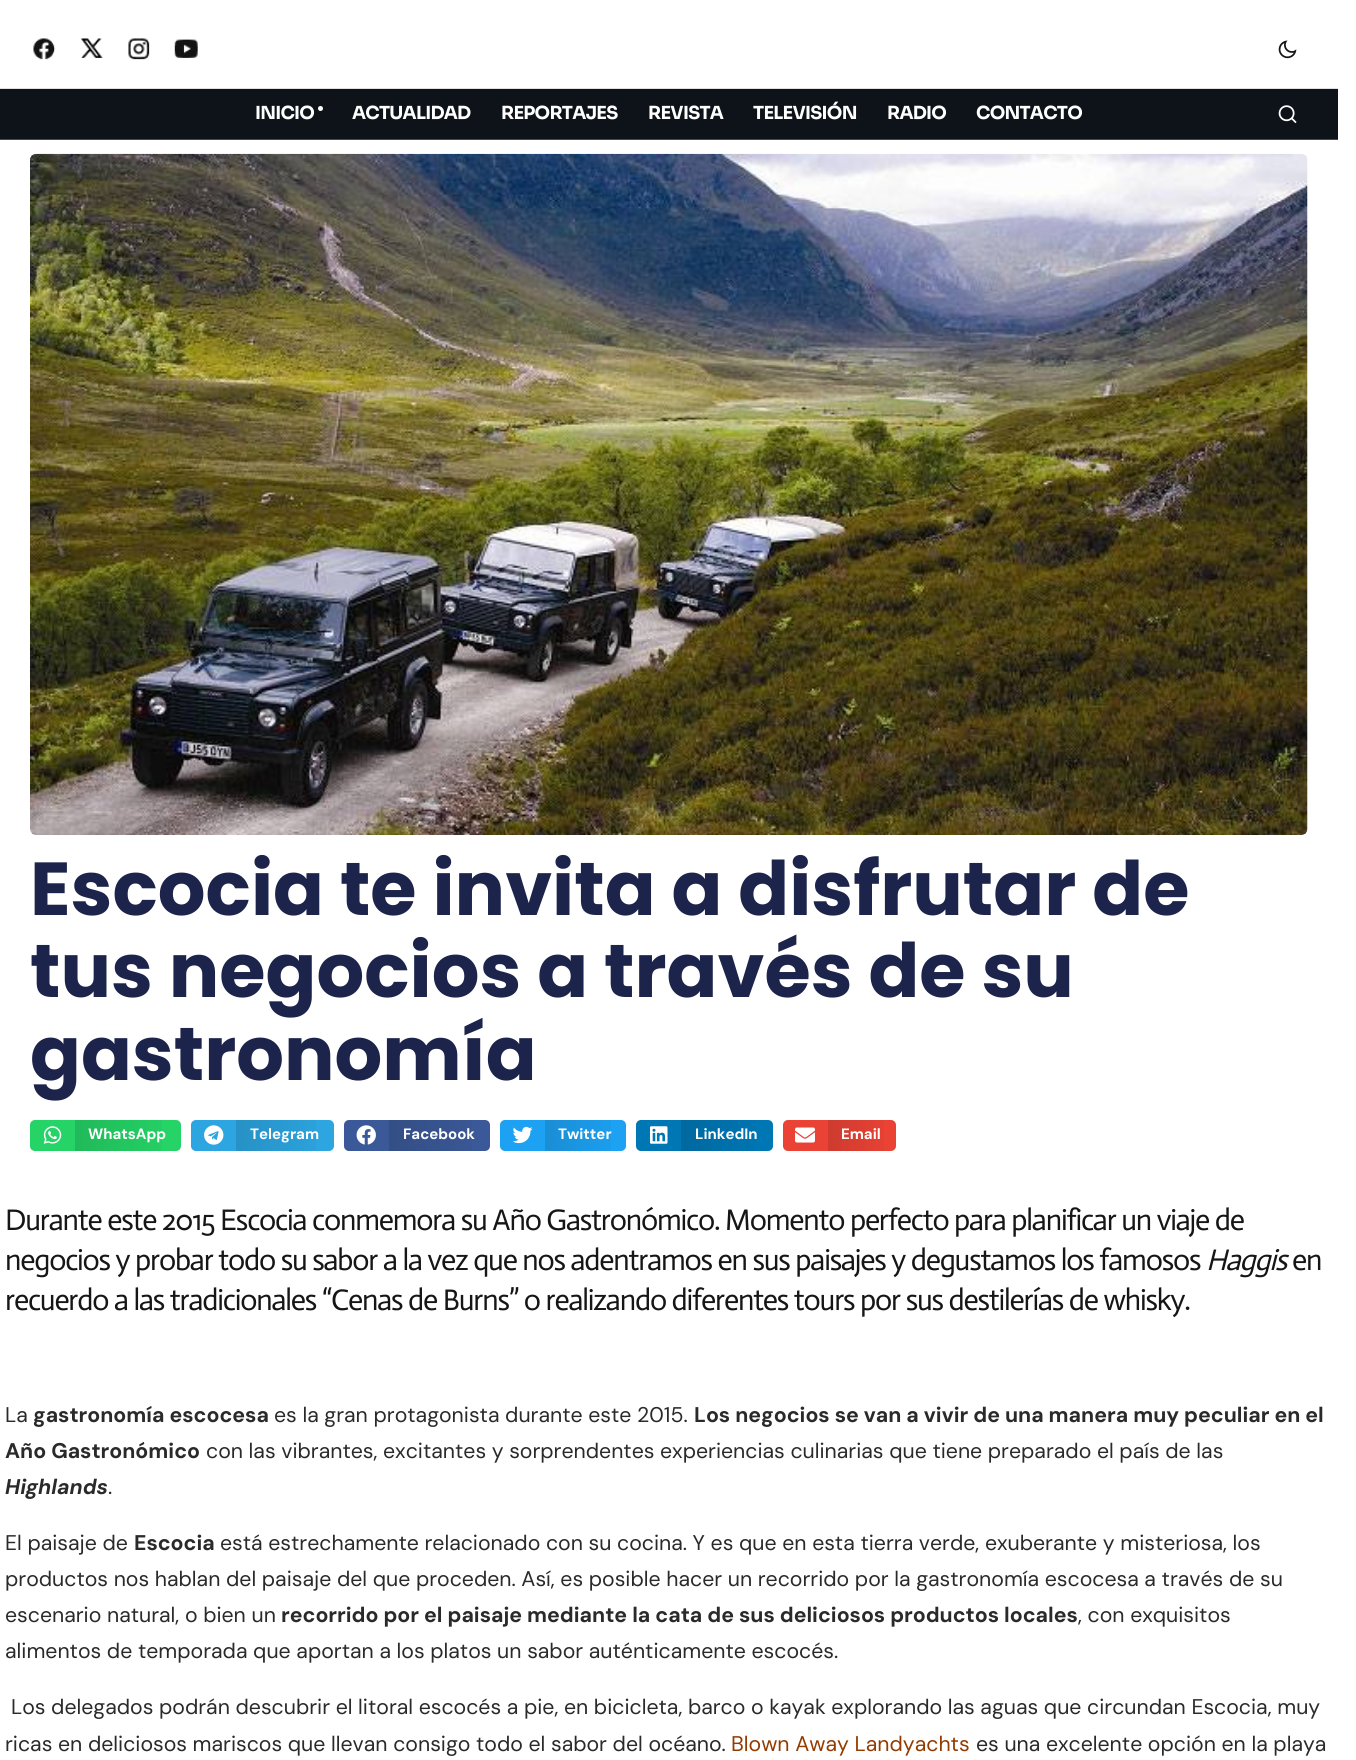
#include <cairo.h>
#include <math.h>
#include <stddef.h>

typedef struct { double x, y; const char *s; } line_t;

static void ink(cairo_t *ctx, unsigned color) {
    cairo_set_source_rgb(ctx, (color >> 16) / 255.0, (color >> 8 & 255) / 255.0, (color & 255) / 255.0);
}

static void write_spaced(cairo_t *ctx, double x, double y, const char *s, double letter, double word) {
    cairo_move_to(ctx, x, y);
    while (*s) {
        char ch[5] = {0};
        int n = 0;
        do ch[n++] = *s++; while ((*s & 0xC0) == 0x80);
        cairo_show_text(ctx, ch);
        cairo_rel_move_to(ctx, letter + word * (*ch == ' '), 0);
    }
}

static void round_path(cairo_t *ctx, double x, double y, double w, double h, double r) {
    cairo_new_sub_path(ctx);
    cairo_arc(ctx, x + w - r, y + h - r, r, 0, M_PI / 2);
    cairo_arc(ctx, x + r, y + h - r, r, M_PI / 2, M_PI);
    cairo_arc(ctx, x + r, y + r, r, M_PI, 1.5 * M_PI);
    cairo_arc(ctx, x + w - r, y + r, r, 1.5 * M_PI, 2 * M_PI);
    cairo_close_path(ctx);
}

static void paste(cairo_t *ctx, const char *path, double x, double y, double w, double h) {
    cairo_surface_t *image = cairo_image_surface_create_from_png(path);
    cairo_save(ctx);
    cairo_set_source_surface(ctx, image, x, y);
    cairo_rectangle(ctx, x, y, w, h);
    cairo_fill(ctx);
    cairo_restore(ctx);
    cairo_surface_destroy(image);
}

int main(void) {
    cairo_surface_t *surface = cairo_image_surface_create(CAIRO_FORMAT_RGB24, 1356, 1760);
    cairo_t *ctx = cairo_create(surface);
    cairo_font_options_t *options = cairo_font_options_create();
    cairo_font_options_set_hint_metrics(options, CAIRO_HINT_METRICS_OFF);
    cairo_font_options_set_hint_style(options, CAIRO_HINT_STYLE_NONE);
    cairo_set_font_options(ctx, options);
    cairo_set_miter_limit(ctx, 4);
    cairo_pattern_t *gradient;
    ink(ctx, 0xFFFFFF);
    cairo_paint(ctx);
    paste(ctx, "media/1.png", 33, 38, 23, 22);
    paste(ctx, "media/2.png", 80, 38, 23, 20);
    paste(ctx, "media/3.png", 128, 38, 22, 22);
    paste(ctx, "media/4.png", 174, 39, 24, 19);
    paste(ctx, "media/5.png", 1278, 40, 19, 19);
    ink(ctx, 0xE0E0E0);
    cairo_rectangle(ctx, 0, 88, 1338, 1);
    cairo_fill(ctx);
    ink(ctx, 0x0E131A);
    cairo_rectangle(ctx, 0, 89, 1338, 50);
    cairo_fill(ctx);
    cairo_select_font_face(ctx, "Sora", CAIRO_FONT_SLANT_NORMAL, CAIRO_FONT_WEIGHT_BOLD);
    cairo_set_font_size(ctx, 18);
    ink(ctx, 0xFFFFFF);
    write_spaced(ctx, 255, 119, "INICIO", -0.75, 0);
    cairo_new_path(ctx);
    cairo_arc(ctx, 320.5, 108.5, 2.5, 0, 2 * M_PI);
    cairo_fill(ctx);
    {
        static const line_t items[] = {
            {352, 119, "ACTUALIDAD"},
            {501, 119, "REPORTAJES"},
            {648, 119, "REVISTA"},
            {753, 119, "TELEVISIÓN"},
            {887, 119, "RADIO"},
            {976, 119, "CONTACTO"},
        };
        for (size_t i = 0; i < sizeof items / sizeof *items; i++) {
            write_spaced(ctx, items[i].x, items[i].y, items[i].s, -0.75, 0);
        }
    }
    paste(ctx, "media/6.png", 1278, 105, 19, 19);
    ink(ctx, 0x494949);
    cairo_rectangle(ctx, 0, 139, 1338, 1);
    cairo_fill(ctx);
    paste(ctx, "media/7.png", 30, 153, 1278, 682);
    cairo_select_font_face(ctx, "Poppins", CAIRO_FONT_SLANT_NORMAL, CAIRO_FONT_WEIGHT_BOLD);
    cairo_set_font_size(ctx, 75);
    ink(ctx, 0x1C244B);
    {
        static const line_t items[] = {
            {30, 915, "Escocia te invita a disfrutar de"},
            {30, 997, "tus negocios a través de su"},
            {30, 1080, "gastronomía"},
        };
        for (size_t i = 0; i < sizeof items / sizeof *items; i++) {
            cairo_move_to(ctx, items[i].x, items[i].y);
            cairo_show_text(ctx, items[i].s);
        }
    }
    ink(ctx, 0x25D366);
    round_path(ctx, 30, 1120, 151, 31, 5);
    cairo_fill(ctx);
    paste(ctx, "media/8.png", 43, 1126, 19, 18);
    gradient = cairo_pattern_create_linear(75, 1136, 181, 1136);
    cairo_pattern_add_color_stop_rgba(gradient, 0, 0, 0, 0, 0.12);
    cairo_pattern_add_color_stop_rgba(gradient, 1, 0, 0, 0, 0);
    cairo_set_source(ctx, gradient);
    cairo_pattern_destroy(gradient);
    cairo_rectangle(ctx, 75, 1120, 87, 31);
    cairo_fill(ctx);
    cairo_select_font_face(ctx, "DM Sans", CAIRO_FONT_SLANT_NORMAL, CAIRO_FONT_WEIGHT_BOLD);
    cairo_set_font_size(ctx, 15);
    ink(ctx, 0xFFFFFF);
    cairo_move_to(ctx, 88, 1139);
    cairo_show_text(ctx, "WhatsApp");
    ink(ctx, 0x2CA5E0);
    round_path(ctx, 191, 1120, 143, 31, 5);
    cairo_fill(ctx);
    paste(ctx, "media/9.png", 204, 1125, 20, 20);
    gradient = cairo_pattern_create_linear(236, 1136, 334, 1136);
    cairo_pattern_add_color_stop_rgba(gradient, 0, 0, 0, 0, 0.12);
    cairo_pattern_add_color_stop_rgba(gradient, 1, 0, 0, 0, 0);
    cairo_set_source(ctx, gradient);
    cairo_pattern_destroy(gradient);
    cairo_rectangle(ctx, 236, 1120, 80, 31);
    cairo_fill(ctx);
    ink(ctx, 0xFFFFFF);
    cairo_move_to(ctx, 250, 1139);
    cairo_show_text(ctx, "Telegram");
    ink(ctx, 0x3B5998);
    round_path(ctx, 344, 1120, 146, 31, 5);
    cairo_fill(ctx);
    paste(ctx, "media/10.png", 356, 1125, 20, 20);
    gradient = cairo_pattern_create_linear(389, 1136, 490, 1136);
    cairo_pattern_add_color_stop_rgba(gradient, 0, 0, 0, 0, 0.12);
    cairo_pattern_add_color_stop_rgba(gradient, 1, 0, 0, 0, 0);
    cairo_set_source(ctx, gradient);
    cairo_pattern_destroy(gradient);
    cairo_rectangle(ctx, 389, 1120, 83, 31);
    cairo_fill(ctx);
    ink(ctx, 0xFFFFFF);
    cairo_move_to(ctx, 403, 1139);
    cairo_show_text(ctx, "Facebook");
    ink(ctx, 0x1DA1F2);
    round_path(ctx, 500, 1120, 126, 31, 5);
    cairo_fill(ctx);
    paste(ctx, "media/11.png", 513, 1126, 20, 18);
    gradient = cairo_pattern_create_linear(545, 1136, 626, 1136);
    cairo_pattern_add_color_stop_rgba(gradient, 0, 0, 0, 0, 0.12);
    cairo_pattern_add_color_stop_rgba(gradient, 1, 0, 0, 0, 0);
    cairo_set_source(ctx, gradient);
    cairo_pattern_destroy(gradient);
    cairo_rectangle(ctx, 545, 1120, 66, 31);
    cairo_fill(ctx);
    ink(ctx, 0xFFFFFF);
    cairo_move_to(ctx, 558, 1139);
    cairo_show_text(ctx, "Twitter");
    ink(ctx, 0x0077B5);
    round_path(ctx, 636, 1120, 137, 31, 5);
    cairo_fill(ctx);
    paste(ctx, "media/12.png", 650, 1126, 18, 18);
    gradient = cairo_pattern_create_linear(681, 1136, 773, 1136);
    cairo_pattern_add_color_stop_rgba(gradient, 0, 0, 0, 0, 0.12);
    cairo_pattern_add_color_stop_rgba(gradient, 1, 0, 0, 0, 0);
    cairo_set_source(ctx, gradient);
    cairo_pattern_destroy(gradient);
    cairo_rectangle(ctx, 681, 1120, 75, 31);
    cairo_fill(ctx);
    ink(ctx, 0xFFFFFF);
    cairo_move_to(ctx, 695, 1139);
    cairo_show_text(ctx, "LinkedIn");
    ink(ctx, 0xEA4335);
    round_path(ctx, 783, 1120, 113, 31, 5);
    cairo_fill(ctx);
    paste(ctx, "media/13.png", 795, 1127, 20, 16);
    gradient = cairo_pattern_create_linear(828, 1136, 896, 1136);
    cairo_pattern_add_color_stop_rgba(gradient, 0, 0, 0, 0, 0.12);
    cairo_pattern_add_color_stop_rgba(gradient, 1, 0, 0, 0, 0);
    cairo_set_source(ctx, gradient);
    cairo_pattern_destroy(gradient);
    cairo_rectangle(ctx, 828, 1120, 56, 31);
    cairo_fill(ctx);
    ink(ctx, 0xFFFFFF);
    cairo_move_to(ctx, 841, 1139);
    cairo_show_text(ctx, "Email");
    cairo_select_font_face(ctx, "Actor", CAIRO_FONT_SLANT_NORMAL, CAIRO_FONT_WEIGHT_NORMAL);
    cairo_set_font_size(ctx, 30);
    ink(ctx, 0x161616);
    write_spaced(ctx, 5, 1230, "Durante este 2015 Escocia conmemora su Año Gastronómico. Momento perfecto para planificar un viaje de", -1.2, 0);
    write_spaced(ctx, 5, 1270, "negocios y probar todo su sabor a la vez que nos adentramos en sus paisajes y degustamos los famosos", -1.2, 0);
    cairo_select_font_face(ctx, "Actor", CAIRO_FONT_SLANT_ITALIC, CAIRO_FONT_WEIGHT_NORMAL);
    write_spaced(ctx, 1206, 1270, "Haggis", -1.2, 0);
    cairo_select_font_face(ctx, "Actor", CAIRO_FONT_SLANT_NORMAL, CAIRO_FONT_WEIGHT_NORMAL);
    write_spaced(ctx, 1292, 1270, "en", -1.2, 0);
    write_spaced(ctx, 5, 1310, "recuerdo a las tradicionales “Cenas de Burns” o realizando diferentes tours por sus destilerías de whisky.", -1.2, 0);
    cairo_select_font_face(ctx, "DM Sans", CAIRO_FONT_SLANT_NORMAL, CAIRO_FONT_WEIGHT_NORMAL);
    cairo_set_font_size(ctx, 21.25);
    ink(ctx, 0x2A2A2A);
    cairo_move_to(ctx, 5, 1422);
    cairo_show_text(ctx, "La");
    cairo_select_font_face(ctx, "DM Sans", CAIRO_FONT_SLANT_NORMAL, CAIRO_FONT_WEIGHT_BOLD);
    cairo_move_to(ctx, 33, 1422);
    cairo_show_text(ctx, "gastronomía escocesa");
    cairo_select_font_face(ctx, "DM Sans", CAIRO_FONT_SLANT_NORMAL, CAIRO_FONT_WEIGHT_NORMAL);
    cairo_move_to(ctx, 274, 1422);
    cairo_show_text(ctx, "es la gran protagonista durante este 2015.");
    cairo_select_font_face(ctx, "DM Sans", CAIRO_FONT_SLANT_NORMAL, CAIRO_FONT_WEIGHT_BOLD);
    cairo_move_to(ctx, 694, 1422);
    cairo_show_text(ctx, "Los negocios se van a vivir de una manera muy peculiar en el");
    cairo_move_to(ctx, 5, 1458);
    cairo_show_text(ctx, "Año Gastronómico");
    cairo_select_font_face(ctx, "DM Sans", CAIRO_FONT_SLANT_NORMAL, CAIRO_FONT_WEIGHT_NORMAL);
    cairo_move_to(ctx, 206, 1458);
    cairo_show_text(ctx, "con las vibrantes, excitantes y sorprendentes experiencias culinarias que tiene preparado el país de las");
    cairo_select_font_face(ctx, "DM Sans", CAIRO_FONT_SLANT_ITALIC, CAIRO_FONT_WEIGHT_BOLD);
    cairo_move_to(ctx, 5, 1494);
    cairo_show_text(ctx, "Highlands");
    cairo_select_font_face(ctx, "DM Sans", CAIRO_FONT_SLANT_NORMAL, CAIRO_FONT_WEIGHT_NORMAL);
    cairo_move_to(ctx, 108, 1494);
    cairo_show_text(ctx, ".");
    cairo_move_to(ctx, 5, 1550);
    cairo_show_text(ctx, "El paisaje de");
    cairo_select_font_face(ctx, "DM Sans", CAIRO_FONT_SLANT_NORMAL, CAIRO_FONT_WEIGHT_BOLD);
    cairo_move_to(ctx, 134, 1550);
    cairo_show_text(ctx, "Escocia");
    cairo_select_font_face(ctx, "DM Sans", CAIRO_FONT_SLANT_NORMAL, CAIRO_FONT_WEIGHT_NORMAL);
    {
        static const line_t items[] = {
            {220, 1550, "está estrechamente relacionado con su cocina. Y es que en esta tierra verde, exuberante y misteriosa, los"},
            {5, 1586, "productos nos hablan del paisaje del que proceden. Así, es posible hacer un recorrido por la gastronomía escocesa a través de su"},
            {5, 1622, "escenario natural, o bien un"},
        };
        for (size_t i = 0; i < sizeof items / sizeof *items; i++) {
            cairo_move_to(ctx, items[i].x, items[i].y);
            cairo_show_text(ctx, items[i].s);
        }
    }
    cairo_select_font_face(ctx, "DM Sans", CAIRO_FONT_SLANT_NORMAL, CAIRO_FONT_WEIGHT_BOLD);
    cairo_move_to(ctx, 281, 1622);
    cairo_show_text(ctx, "recorrido por el paisaje mediante la cata de sus deliciosos productos locales");
    cairo_select_font_face(ctx, "DM Sans", CAIRO_FONT_SLANT_NORMAL, CAIRO_FONT_WEIGHT_NORMAL);
    {
        static const line_t items[] = {
            {1078, 1622, ", con exquisitos"},
            {5, 1658, "alimentos de temporada que aportan a los platos un sabor auténticamente escocés."},
            {11, 1714, "Los delegados podrán descubrir el litoral escocés a pie, en bicicleta, barco o kayak explorando las aguas que circundan Escocia, muy"},
            {5, 1751, "ricas en deliciosos mariscos que llevan consigo todo el sabor del océano."},
        };
        for (size_t i = 0; i < sizeof items / sizeof *items; i++) {
            cairo_move_to(ctx, items[i].x, items[i].y);
            cairo_show_text(ctx, items[i].s);
        }
    }
    ink(ctx, 0x933B00);
    cairo_move_to(ctx, 731, 1751);
    cairo_show_text(ctx, "Blown Away Landyachts");
    ink(ctx, 0x2A2A2A);
    cairo_move_to(ctx, 976, 1751);
    cairo_show_text(ctx, "es una excelente opción en la playa");
    cairo_surface_write_to_png(surface, "image.png");
    cairo_font_options_destroy(options);
    cairo_destroy(ctx);
    cairo_surface_destroy(surface);
    return 0;
}
